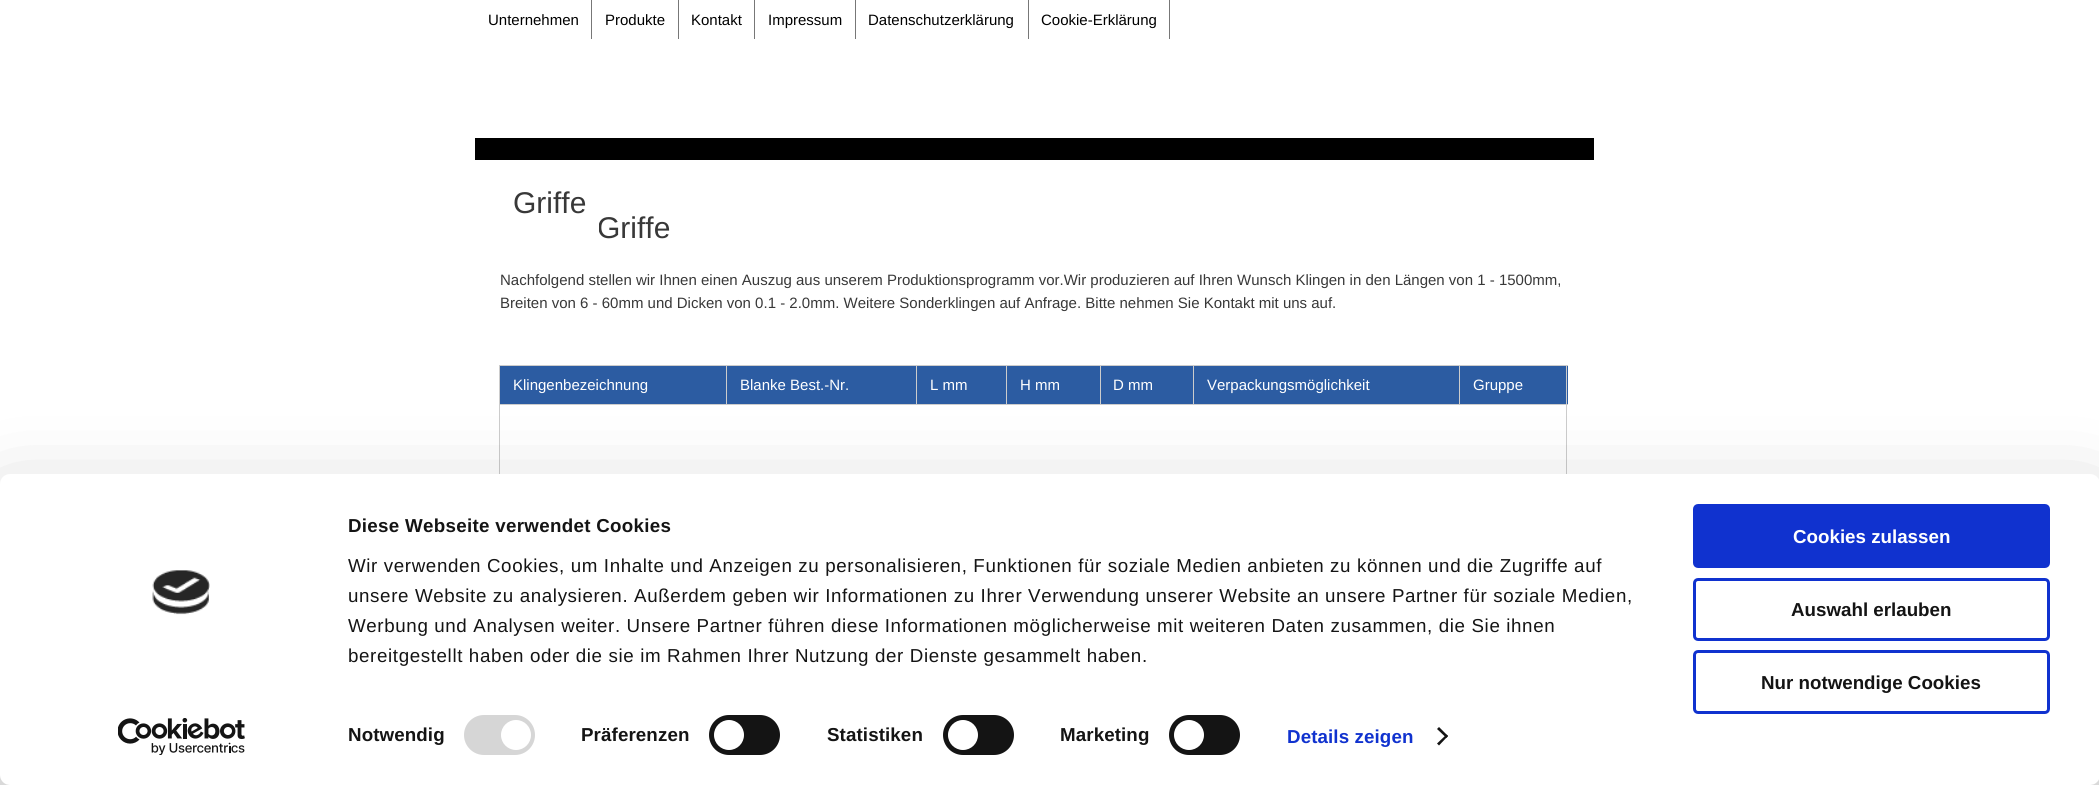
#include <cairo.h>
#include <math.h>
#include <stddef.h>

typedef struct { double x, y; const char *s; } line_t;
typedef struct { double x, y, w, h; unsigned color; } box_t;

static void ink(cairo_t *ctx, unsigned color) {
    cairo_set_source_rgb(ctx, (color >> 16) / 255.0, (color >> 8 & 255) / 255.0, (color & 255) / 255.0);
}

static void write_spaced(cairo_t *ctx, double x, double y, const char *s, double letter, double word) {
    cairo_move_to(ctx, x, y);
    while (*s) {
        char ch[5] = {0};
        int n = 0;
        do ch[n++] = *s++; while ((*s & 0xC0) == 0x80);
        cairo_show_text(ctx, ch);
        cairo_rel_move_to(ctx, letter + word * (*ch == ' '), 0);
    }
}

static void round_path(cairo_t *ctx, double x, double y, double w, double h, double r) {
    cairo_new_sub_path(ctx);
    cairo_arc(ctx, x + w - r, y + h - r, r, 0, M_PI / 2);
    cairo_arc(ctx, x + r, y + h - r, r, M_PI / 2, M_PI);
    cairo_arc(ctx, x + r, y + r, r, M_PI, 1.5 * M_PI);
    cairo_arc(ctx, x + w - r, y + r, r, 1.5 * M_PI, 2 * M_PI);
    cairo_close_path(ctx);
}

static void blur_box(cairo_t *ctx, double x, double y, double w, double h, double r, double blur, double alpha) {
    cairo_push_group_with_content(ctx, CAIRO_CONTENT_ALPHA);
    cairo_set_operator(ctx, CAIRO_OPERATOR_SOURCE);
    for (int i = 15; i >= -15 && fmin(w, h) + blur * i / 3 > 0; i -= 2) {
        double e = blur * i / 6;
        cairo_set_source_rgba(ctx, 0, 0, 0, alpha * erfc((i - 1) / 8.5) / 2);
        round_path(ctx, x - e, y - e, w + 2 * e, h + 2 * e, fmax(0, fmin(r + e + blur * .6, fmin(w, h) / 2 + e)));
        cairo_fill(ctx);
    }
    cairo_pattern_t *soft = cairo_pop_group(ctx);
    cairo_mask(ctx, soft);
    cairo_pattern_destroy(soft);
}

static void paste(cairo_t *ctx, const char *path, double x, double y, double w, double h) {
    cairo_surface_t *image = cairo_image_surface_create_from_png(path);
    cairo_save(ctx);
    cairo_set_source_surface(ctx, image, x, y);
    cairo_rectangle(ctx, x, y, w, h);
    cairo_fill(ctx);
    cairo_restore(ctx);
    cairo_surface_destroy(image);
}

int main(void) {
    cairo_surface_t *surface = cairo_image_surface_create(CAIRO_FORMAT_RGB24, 2099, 785);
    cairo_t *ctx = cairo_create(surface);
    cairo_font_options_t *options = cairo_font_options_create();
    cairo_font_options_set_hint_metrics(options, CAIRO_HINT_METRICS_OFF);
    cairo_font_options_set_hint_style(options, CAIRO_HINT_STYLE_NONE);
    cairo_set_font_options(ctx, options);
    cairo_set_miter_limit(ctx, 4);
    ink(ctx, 0xFFFFFF);
    cairo_paint(ctx);
    ink(ctx, 0x777777);
    cairo_rectangle(ctx, 591, 0, 1, 39);
    cairo_fill(ctx);
    cairo_select_font_face(ctx, "Liberation Sans", CAIRO_FONT_SLANT_NORMAL, CAIRO_FONT_WEIGHT_NORMAL);
    cairo_set_font_size(ctx, 15);
    ink(ctx, 0x000000);
    cairo_move_to(ctx, 488, 25);
    cairo_show_text(ctx, "Unternehmen");
    ink(ctx, 0x777777);
    cairo_rectangle(ctx, 678, 0, 1, 39);
    cairo_fill(ctx);
    ink(ctx, 0x000000);
    cairo_move_to(ctx, 605, 25);
    cairo_show_text(ctx, "Produkte");
    ink(ctx, 0x777777);
    cairo_rectangle(ctx, 754, 0, 1, 39);
    cairo_fill(ctx);
    ink(ctx, 0x000000);
    cairo_move_to(ctx, 691, 25);
    cairo_show_text(ctx, "Kontakt");
    ink(ctx, 0x777777);
    cairo_rectangle(ctx, 855, 0, 1, 39);
    cairo_fill(ctx);
    ink(ctx, 0x000000);
    cairo_move_to(ctx, 768, 25);
    cairo_show_text(ctx, "Impressum");
    ink(ctx, 0x777777);
    cairo_rectangle(ctx, 1028, 0, 1, 39);
    cairo_fill(ctx);
    ink(ctx, 0x000000);
    cairo_move_to(ctx, 868, 25);
    cairo_show_text(ctx, "Datenschutzerklärung");
    ink(ctx, 0x777777);
    cairo_rectangle(ctx, 1169, 0, 1, 39);
    cairo_fill(ctx);
    ink(ctx, 0x000000);
    cairo_move_to(ctx, 1041, 25);
    cairo_show_text(ctx, "Cookie-Erklärung");
    cairo_rectangle(ctx, 475, 138, 1119, 22);
    cairo_fill(ctx);
    cairo_set_font_size(ctx, 30);
    ink(ctx, 0x383838);
    cairo_move_to(ctx, 597, 238);
    cairo_show_text(ctx, "Griffe");
    ink(ctx, 0xFFFFFF);
    cairo_rectangle(ctx, 598, 223, 1, 9);
    cairo_fill(ctx);
    ink(ctx, 0x383838);
    cairo_move_to(ctx, 513, 213);
    cairo_show_text(ctx, "Griffe");
    cairo_set_font_size(ctx, 15);
    cairo_move_to(ctx, 500, 285);
    cairo_show_text(ctx, "Nachfolgend stellen wir Ihnen einen Auszug aus unserem Produktionsprogramm vor.Wir produzieren auf Ihren Wunsch Klingen in den Längen von 1 - 1500mm,");
    cairo_move_to(ctx, 500, 308);
    cairo_show_text(ctx, "Breiten von 6 - 60mm und Dicken von 0.1 - 2.0mm. Weitere Sonderklingen auf Anfrage. Bitte nehmen Sie Kontakt mit uns auf.");
    {
        static const box_t items[] = {
            {499, 365, 1069, 1, 0xCCCCCC},
            {500, 366, 1068, 38, 0x2C5CA2},
            {1566, 365, 1, 109, 0xCCCCCC},
            {1459, 404, 109, 1, 0xCCCCCC},
            {1459, 365, 1, 40, 0xCCCCCC},
            {1193, 404, 267, 1, 0xCCCCCC},
            {1193, 365, 1, 40, 0xCCCCCC},
            {1100, 404, 94, 1, 0xCCCCCC},
            {1100, 365, 1, 40, 0xCCCCCC},
            {1006, 404, 95, 1, 0xCCCCCC},
            {1006, 365, 1, 40, 0xCCCCCC},
            {916, 404, 92, 1, 0xCCCCCC},
            {916, 365, 1, 40, 0xCCCCCC},
            {726, 404, 192, 1, 0xCCCCCC},
            {726, 365, 1, 40, 0xCCCCCC},
            {499, 404, 1, 77, 0xCCCCCC},
            {499, 404, 229, 1, 0xCCCCCC},
            {499, 365, 1, 40, 0xCCCCCC},
        };
        for (size_t i = 0; i < sizeof items / sizeof *items; i++) {
            ink(ctx, items[i].color);
            cairo_rectangle(ctx, items[i].x, items[i].y, items[i].w, items[i].h);
            cairo_fill(ctx);
        }
    }
    ink(ctx, 0xFFFFFF);
    {
        static const line_t items[] = {
            {513, 390, "Klingenbezeichnung"},
            {740, 390, "Blanke Best.-Nr."},
            {930, 390, "L mm"},
            {1020, 390, "H mm"},
            {1113, 390, "D mm"},
            {1207, 390, "Verpackungsmöglichkeit"},
            {1473, 390, "Gruppe"},
        };
        for (size_t i = 0; i < sizeof items / sizeof *items; i++) {
            cairo_move_to(ctx, items[i].x, items[i].y);
            cairo_show_text(ctx, items[i].s);
        }
    }
    ink(ctx, 0x000000);
    blur_box(ctx, 0, 511, 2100, 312, 10, 44, 0.3);
    ink(ctx, 0xFFFFFF);
    round_path(ctx, 0, 474, 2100, 311, 10);
    cairo_fill(ctx);
    paste(ctx, "media/1.png", 152, 570, 58, 45);
    paste(ctx, "media/2.png", 118, 718, 127, 37);
    cairo_select_font_face(ctx, "Liberation Sans", CAIRO_FONT_SLANT_NORMAL, CAIRO_FONT_WEIGHT_BOLD);
    cairo_set_font_size(ctx, 18.75);
    ink(ctx, 0x141414);
    write_spaced(ctx, 348, 532, "Diese Webseite verwendet Cookies", 0.3, 0);
    cairo_select_font_face(ctx, "Liberation Sans", CAIRO_FONT_SLANT_NORMAL, CAIRO_FONT_WEIGHT_NORMAL);
    {
        static const line_t items[] = {
            {348, 572, "Wir verwenden Cookies, um Inhalte und Anzeigen zu personalisieren, Funktionen für soziale Medien anbieten zu können und die Zugriffe auf"},
            {348, 602, "unsere Website zu analysieren. Außerdem geben wir Informationen zu Ihrer Verwendung unserer Website an unsere Partner für soziale Medien,"},
            {348, 632, "Werbung und Analysen weiter. Unsere Partner führen diese Informationen möglicherweise mit weiteren Daten zusammen, die Sie ihnen"},
            {348, 662, "bereitgestellt haben oder die sie im Rahmen Ihrer Nutzung der Dienste gesammelt haben."},
        };
        for (size_t i = 0; i < sizeof items / sizeof *items; i++) {
            write_spaced(ctx, items[i].x, items[i].y, items[i].s, 0.62, 0);
        }
    }
    cairo_select_font_face(ctx, "Liberation Sans", CAIRO_FONT_SLANT_NORMAL, CAIRO_FONT_WEIGHT_BOLD);
    write_spaced(ctx, 348, 741, "Notwendig", 0.1, 0);
    ink(ctx, 0xD6D6D6);
    round_path(ctx, 464, 715, 71, 40, 20);
    cairo_fill(ctx);
    ink(ctx, 0xFFFFFF);
    cairo_arc(ctx, 516, 735, 15, 0, 2 * M_PI);
    cairo_fill(ctx);
    ink(ctx, 0x141414);
    write_spaced(ctx, 581, 741, "Präferenzen", 0.1, 0);
    round_path(ctx, 709, 715, 71, 40, 20);
    cairo_fill(ctx);
    ink(ctx, 0xFFFFFF);
    cairo_arc(ctx, 729, 735, 15, 0, 2 * M_PI);
    cairo_fill(ctx);
    ink(ctx, 0x141414);
    write_spaced(ctx, 827, 741, "Statistiken", 0.1, 0);
    round_path(ctx, 943, 715, 71, 40, 20);
    cairo_fill(ctx);
    ink(ctx, 0xFFFFFF);
    cairo_arc(ctx, 963, 735, 15, 0, 2 * M_PI);
    cairo_fill(ctx);
    ink(ctx, 0x141414);
    write_spaced(ctx, 1060, 741, "Marketing", 0.1, 0);
    round_path(ctx, 1169, 715, 71, 40, 20);
    cairo_fill(ctx);
    ink(ctx, 0xFFFFFF);
    cairo_arc(ctx, 1189, 735, 15, 0, 2 * M_PI);
    cairo_fill(ctx);
    ink(ctx, 0x1032CF);
    write_spaced(ctx, 1287, 743, "Details zeigen", 0.1, 0);
    ink(ctx, 0x141414);
    cairo_new_path(ctx);
    cairo_move_to(ctx, 1439, 727);
    cairo_line_to(ctx, 1448, 736);
    cairo_line_to(ctx, 1446.5, 738);
    cairo_line_to(ctx, 1437, 729);
    cairo_close_path(ctx);
    cairo_fill(ctx);
    cairo_new_path(ctx);
    cairo_move_to(ctx, 1446.5, 734.5);
    cairo_line_to(ctx, 1448, 736);
    cairo_line_to(ctx, 1439, 745.5);
    cairo_line_to(ctx, 1437, 743.5);
    cairo_close_path(ctx);
    cairo_fill(ctx);
    ink(ctx, 0x1032CF);
    round_path(ctx, 1694.5, 505.5, 354, 61, 3.5);
    cairo_fill_preserve(ctx);
    cairo_set_line_width(ctx, 3);
    cairo_stroke(ctx);
    ink(ctx, 0xFFFFFF);
    cairo_move_to(ctx, 1793, 543);
    cairo_show_text(ctx, "Cookies zulassen");
    round_path(ctx, 1694.5, 579.5, 354, 60, 3.5);
    ink(ctx, 0x1032CF);
    cairo_stroke(ctx);
    ink(ctx, 0x141414);
    cairo_move_to(ctx, 1791, 616);
    cairo_show_text(ctx, "Auswahl erlauben");
    round_path(ctx, 1694.5, 651.5, 354, 61, 3.5);
    ink(ctx, 0x1032CF);
    cairo_stroke(ctx);
    ink(ctx, 0x141414);
    cairo_move_to(ctx, 1761, 689);
    cairo_show_text(ctx, "Nur notwendige Cookies");
    cairo_surface_write_to_png(surface, "image.png");
    cairo_font_options_destroy(options);
    cairo_destroy(ctx);
    cairo_surface_destroy(surface);
    return 0;
}
